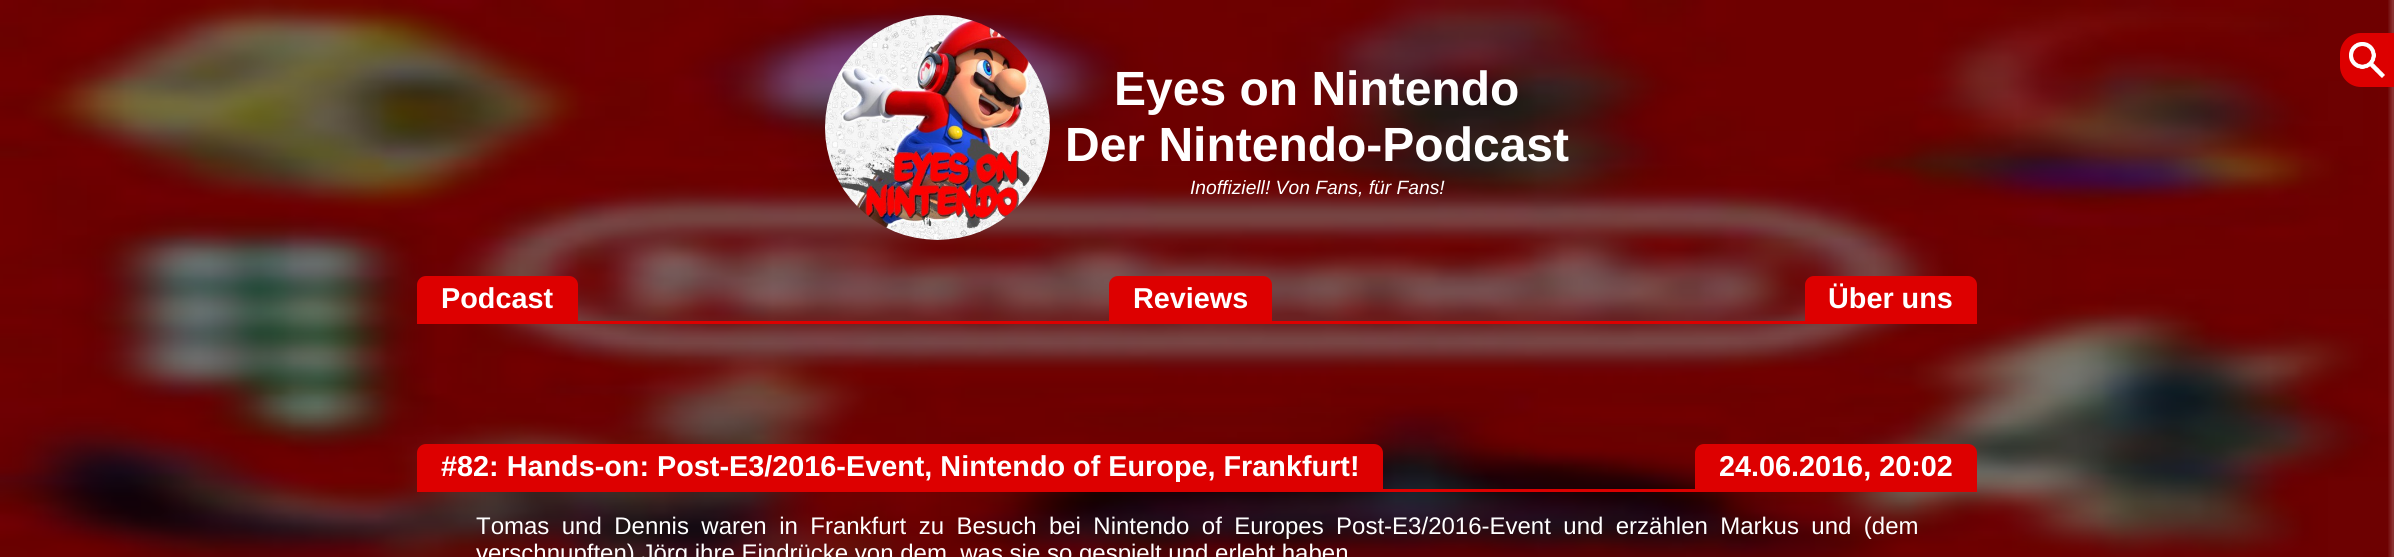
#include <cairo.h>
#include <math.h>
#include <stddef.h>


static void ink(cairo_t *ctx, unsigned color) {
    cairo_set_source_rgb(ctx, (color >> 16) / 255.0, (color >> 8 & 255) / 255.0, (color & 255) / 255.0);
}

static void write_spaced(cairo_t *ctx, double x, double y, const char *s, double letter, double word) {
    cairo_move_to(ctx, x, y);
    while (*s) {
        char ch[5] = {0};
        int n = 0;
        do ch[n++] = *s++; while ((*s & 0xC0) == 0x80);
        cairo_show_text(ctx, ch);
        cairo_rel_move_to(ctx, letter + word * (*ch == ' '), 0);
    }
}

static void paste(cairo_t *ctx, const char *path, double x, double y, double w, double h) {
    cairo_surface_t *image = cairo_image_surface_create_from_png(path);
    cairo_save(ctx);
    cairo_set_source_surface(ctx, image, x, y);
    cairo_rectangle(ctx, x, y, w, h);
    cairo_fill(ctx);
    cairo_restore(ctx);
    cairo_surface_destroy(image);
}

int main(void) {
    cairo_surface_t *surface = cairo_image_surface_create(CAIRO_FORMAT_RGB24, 2394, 557);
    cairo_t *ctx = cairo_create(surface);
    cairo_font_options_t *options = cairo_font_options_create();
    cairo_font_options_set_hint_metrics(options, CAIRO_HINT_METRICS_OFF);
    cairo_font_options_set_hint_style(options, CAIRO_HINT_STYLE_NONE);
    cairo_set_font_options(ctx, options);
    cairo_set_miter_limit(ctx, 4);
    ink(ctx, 0xFFFFFF);
    cairo_paint(ctx);
    paste(ctx, "media/1.png", 0, 0, 2394, 557);
    ink(ctx, 0xDD0000);
    cairo_new_path(ctx);
    cairo_move_to(ctx, 2361, 33);
    cairo_line_to(ctx, 2394, 33);
    cairo_line_to(ctx, 2394, 87);
    cairo_line_to(ctx, 2361, 87);
    cairo_curve_to(ctx, 2349.5, 87, 2340, 77.5, 2340, 66);
    cairo_line_to(ctx, 2340, 54);
    cairo_curve_to(ctx, 2340, 42.5, 2349.5, 33, 2361, 33);
    cairo_close_path(ctx);
    cairo_fill(ctx);
    paste(ctx, "media/2.png", 2349, 42, 36, 36);
    paste(ctx, "media/3.png", 825, 15, 225, 225);
    cairo_select_font_face(ctx, "Liberation Sans", CAIRO_FONT_SLANT_NORMAL, CAIRO_FONT_WEIGHT_BOLD);
    cairo_set_font_size(ctx, 48);
    ink(ctx, 0xFFFFFF);
    cairo_move_to(ctx, 1114, 105);
    cairo_show_text(ctx, "Eyes on Nintendo");
    cairo_move_to(ctx, 1065, 161);
    cairo_show_text(ctx, "Der Nintendo-Podcast");
    cairo_select_font_face(ctx, "Liberation Sans", CAIRO_FONT_SLANT_ITALIC, CAIRO_FONT_WEIGHT_NORMAL);
    cairo_set_font_size(ctx, 19.25);
    cairo_move_to(ctx, 1190, 194);
    cairo_show_text(ctx, "Inoffiziell! Von Fans, für Fans!");
    ink(ctx, 0xDD0000);
    cairo_rectangle(ctx, 417, 321, 1560, 3);
    cairo_fill(ctx);
    cairo_new_path(ctx);
    cairo_move_to(ctx, 426, 276);
    cairo_line_to(ctx, 569, 276);
    cairo_curve_to(ctx, 574, 276, 578, 280, 578, 285);
    cairo_line_to(ctx, 578, 321);
    cairo_line_to(ctx, 417, 321);
    cairo_line_to(ctx, 417, 285);
    cairo_curve_to(ctx, 417, 280, 421, 276, 426, 276);
    cairo_close_path(ctx);
    cairo_fill(ctx);
    cairo_select_font_face(ctx, "Liberation Sans", CAIRO_FONT_SLANT_NORMAL, CAIRO_FONT_WEIGHT_BOLD);
    cairo_set_font_size(ctx, 28.8);
    ink(ctx, 0xFFFFFF);
    cairo_move_to(ctx, 441, 308);
    cairo_show_text(ctx, "Podcast");
    ink(ctx, 0xDD0000);
    cairo_new_path(ctx);
    cairo_move_to(ctx, 1118, 276);
    cairo_line_to(ctx, 1263, 276);
    cairo_curve_to(ctx, 1268, 276, 1272, 280, 1272, 285);
    cairo_line_to(ctx, 1272, 321);
    cairo_line_to(ctx, 1109, 321);
    cairo_line_to(ctx, 1109, 285);
    cairo_curve_to(ctx, 1109, 280, 1113, 276, 1118, 276);
    cairo_close_path(ctx);
    cairo_fill(ctx);
    ink(ctx, 0xFFFFFF);
    cairo_move_to(ctx, 1133, 308);
    cairo_show_text(ctx, "Reviews");
    ink(ctx, 0xDD0000);
    cairo_new_path(ctx);
    cairo_move_to(ctx, 1814, 276);
    cairo_line_to(ctx, 1968, 276);
    cairo_curve_to(ctx, 1973, 276, 1977, 280, 1977, 285);
    cairo_line_to(ctx, 1977, 321);
    cairo_line_to(ctx, 1805, 321);
    cairo_line_to(ctx, 1805, 285);
    cairo_curve_to(ctx, 1805, 280, 1809, 276, 1814, 276);
    cairo_close_path(ctx);
    cairo_fill(ctx);
    ink(ctx, 0xFFFFFF);
    cairo_move_to(ctx, 1828, 308);
    cairo_show_text(ctx, "Über uns");
    ink(ctx, 0xDD0000);
    cairo_rectangle(ctx, 417, 489, 1560, 3);
    cairo_fill(ctx);
    cairo_new_path(ctx);
    cairo_move_to(ctx, 426, 444);
    cairo_line_to(ctx, 1374, 444);
    cairo_curve_to(ctx, 1379, 444, 1383, 448, 1383, 453);
    cairo_line_to(ctx, 1383, 489);
    cairo_line_to(ctx, 417, 489);
    cairo_line_to(ctx, 417, 453);
    cairo_curve_to(ctx, 417, 448, 421, 444, 426, 444);
    cairo_close_path(ctx);
    cairo_fill(ctx);
    ink(ctx, 0xFFFFFF);
    cairo_move_to(ctx, 441, 476);
    cairo_show_text(ctx, "#82: Hands-on: Post-E3/2016-Event, Nintendo of Europe, Frankfurt!");
    ink(ctx, 0xDD0000);
    cairo_new_path(ctx);
    cairo_move_to(ctx, 1704, 444);
    cairo_line_to(ctx, 1968, 444);
    cairo_curve_to(ctx, 1973, 444, 1977, 448, 1977, 453);
    cairo_line_to(ctx, 1977, 489);
    cairo_line_to(ctx, 1695, 489);
    cairo_line_to(ctx, 1695, 453);
    cairo_curve_to(ctx, 1695, 448, 1699, 444, 1704, 444);
    cairo_close_path(ctx);
    cairo_fill(ctx);
    ink(ctx, 0xFFFFFF);
    cairo_move_to(ctx, 1719, 476);
    cairo_show_text(ctx, "24.06.2016, 20:02");
    cairo_select_font_face(ctx, "Liberation Sans", CAIRO_FONT_SLANT_NORMAL, CAIRO_FONT_WEIGHT_NORMAL);
    cairo_set_font_size(ctx, 24);
    write_spaced(ctx, 476, 534, "Tomas und Dennis waren in Frankfurt zu Besuch bei Nintendo of Europes Post-E3/2016-Event und erzählen Markus und (dem", 0, 5.75);
    cairo_move_to(ctx, 476, 561);
    cairo_show_text(ctx, "verschnupften) Jörg ihre Eindrücke von dem, was sie so gespielt und erlebt haben");
    cairo_surface_write_to_png(surface, "image.png");
    cairo_font_options_destroy(options);
    cairo_destroy(ctx);
    cairo_surface_destroy(surface);
    return 0;
}
